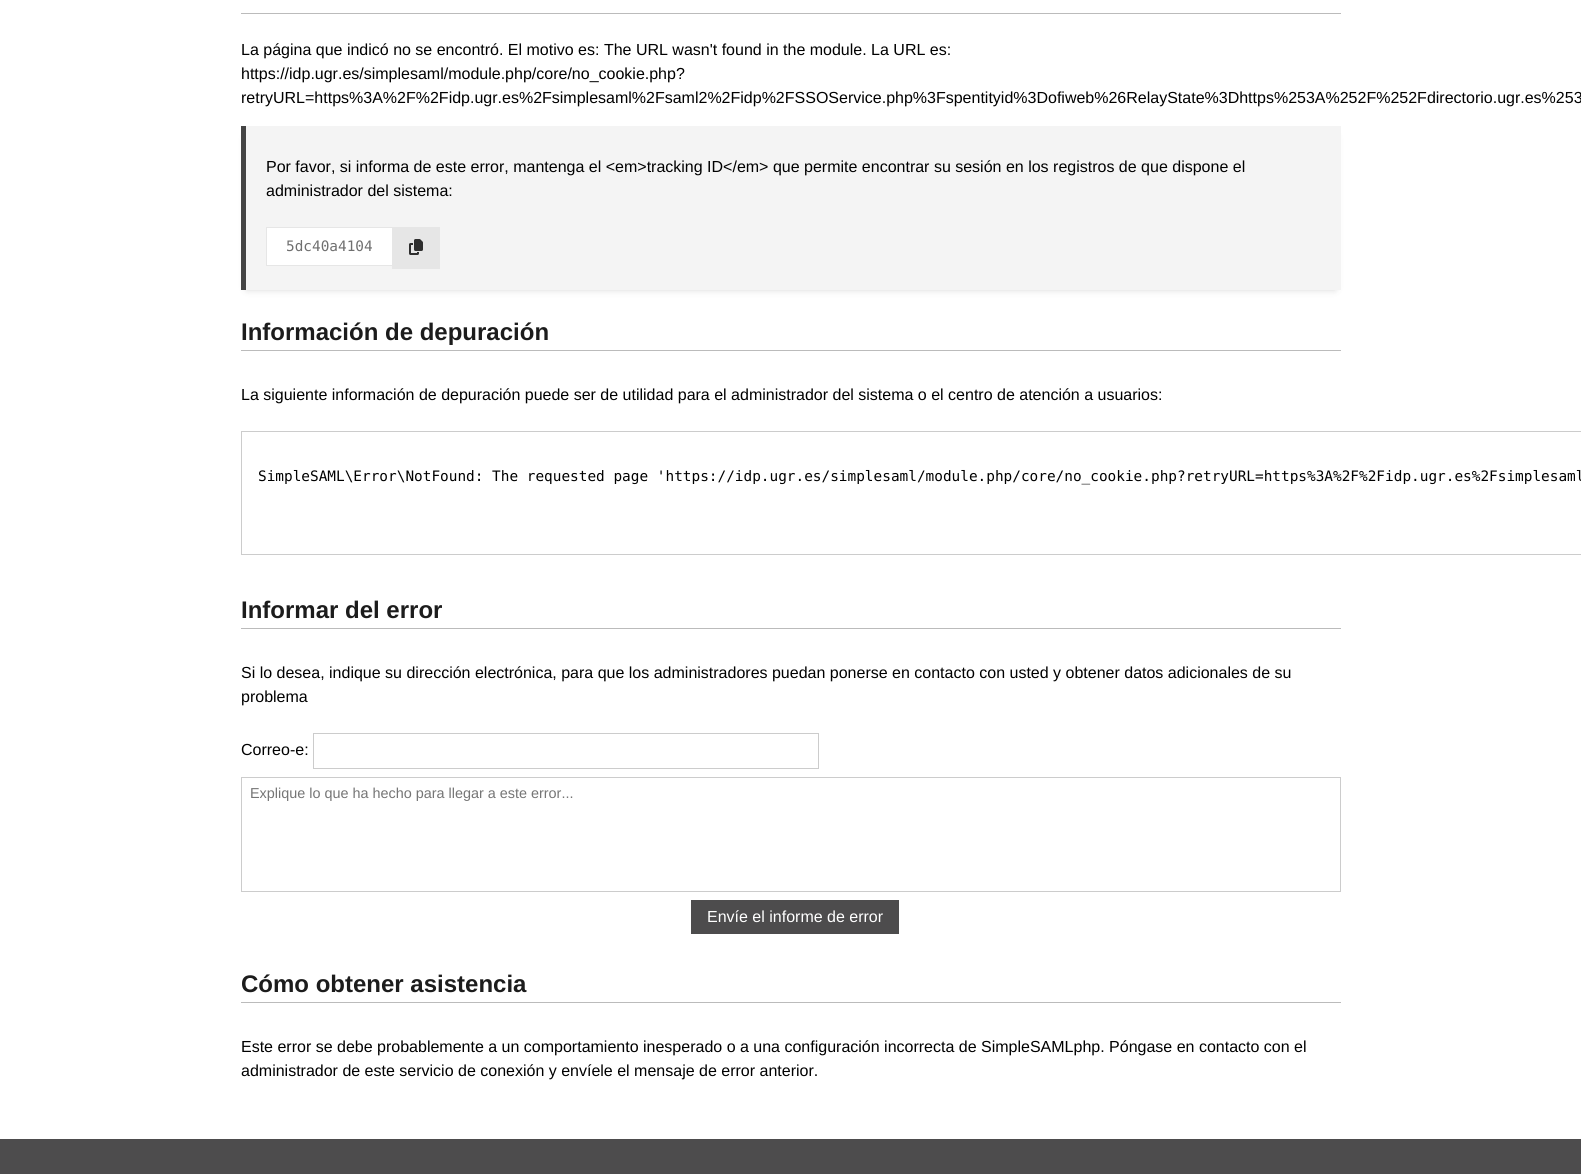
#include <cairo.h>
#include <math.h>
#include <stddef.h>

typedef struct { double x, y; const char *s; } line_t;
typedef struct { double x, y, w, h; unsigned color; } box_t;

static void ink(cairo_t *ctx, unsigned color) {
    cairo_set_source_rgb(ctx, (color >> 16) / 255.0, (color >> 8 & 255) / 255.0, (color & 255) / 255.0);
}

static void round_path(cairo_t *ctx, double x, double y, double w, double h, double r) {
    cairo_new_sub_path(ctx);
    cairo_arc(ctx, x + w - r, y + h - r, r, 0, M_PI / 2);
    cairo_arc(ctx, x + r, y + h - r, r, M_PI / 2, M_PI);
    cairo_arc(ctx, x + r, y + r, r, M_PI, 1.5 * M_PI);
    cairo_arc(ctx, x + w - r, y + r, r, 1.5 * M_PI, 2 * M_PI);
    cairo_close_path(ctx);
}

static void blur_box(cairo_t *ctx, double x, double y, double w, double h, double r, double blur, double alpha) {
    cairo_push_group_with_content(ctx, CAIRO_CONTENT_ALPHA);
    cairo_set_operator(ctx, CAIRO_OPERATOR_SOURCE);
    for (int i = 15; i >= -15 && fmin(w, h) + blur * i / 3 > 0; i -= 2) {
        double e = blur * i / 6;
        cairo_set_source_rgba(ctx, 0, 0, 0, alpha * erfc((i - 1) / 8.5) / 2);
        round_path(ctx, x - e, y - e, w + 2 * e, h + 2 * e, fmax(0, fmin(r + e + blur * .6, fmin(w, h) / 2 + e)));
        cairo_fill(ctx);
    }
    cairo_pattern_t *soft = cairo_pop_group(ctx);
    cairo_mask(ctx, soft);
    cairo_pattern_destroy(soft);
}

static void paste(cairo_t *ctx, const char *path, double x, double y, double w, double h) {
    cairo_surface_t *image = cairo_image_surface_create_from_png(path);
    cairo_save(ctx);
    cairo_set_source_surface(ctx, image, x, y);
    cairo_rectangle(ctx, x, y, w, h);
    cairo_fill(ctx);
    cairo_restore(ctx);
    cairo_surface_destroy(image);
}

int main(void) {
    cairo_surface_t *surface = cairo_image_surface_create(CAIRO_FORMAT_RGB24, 1581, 1174);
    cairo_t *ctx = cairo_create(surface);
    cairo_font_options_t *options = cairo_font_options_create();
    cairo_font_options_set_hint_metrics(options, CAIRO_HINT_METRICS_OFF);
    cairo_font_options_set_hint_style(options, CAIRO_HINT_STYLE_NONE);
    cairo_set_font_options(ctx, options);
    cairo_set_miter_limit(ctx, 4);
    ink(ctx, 0xFFFFFF);
    cairo_paint(ctx);
    ink(ctx, 0xBBBBBB);
    cairo_rectangle(ctx, 241, 13, 1100, 1);
    cairo_fill(ctx);
    cairo_select_font_face(ctx, "Liberation Sans", CAIRO_FONT_SLANT_NORMAL, CAIRO_FONT_WEIGHT_NORMAL);
    cairo_set_font_size(ctx, 16);
    ink(ctx, 0x000000);
    {
        static const line_t items[] = {
            {241, 55, "La página que indicó no se encontró. El motivo es: The URL wasn't found in the module. La URL es:"},
            {241, 79, "https://idp.ugr.es/simplesaml/module.php/core/no_cookie.php?"},
            {241, 103, "retryURL=https%3A%2F%2Fidp.ugr.es%2Fsimplesaml%2Fsaml2%2Fidp%2FSSOService.php%3Fspentityid%3Dofiweb%26RelayState%3Dhttps%253A%252F%252Fdirectorio.ugr.es%253"},
        };
        for (size_t i = 0; i < sizeof items / sizeof *items; i++) {
            cairo_move_to(ctx, items[i].x, items[i].y);
            cairo_show_text(ctx, items[i].s);
        }
    }
    ink(ctx, 0x000000);
    blur_box(ctx, 247, 137, 1088, 152, 0, 4, 0.2);
    ink(ctx, 0xF4F4F4);
    cairo_rectangle(ctx, 246, 126, 1095, 164);
    cairo_fill(ctx);
    ink(ctx, 0x444444);
    cairo_rectangle(ctx, 241, 126, 5, 164);
    cairo_fill(ctx);
    ink(ctx, 0x000000);
    cairo_move_to(ctx, 266, 172);
    cairo_show_text(ctx, "Por favor, si informa de este error, mantenga el <em>tracking ID</em> que permite encontrar su sesión en los registros de que dispone el");
    cairo_move_to(ctx, 266, 196);
    cairo_show_text(ctx, "administrador del sistema:");
    {
        static const box_t items[] = {
            {267, 228, 125, 37, 0xFFFFFF},
            {266, 227, 126, 1, 0xE6E6E6},
            {266, 265, 126, 1, 0xE6E6E6},
            {266, 227, 1, 39, 0xE6E6E6},
        };
        for (size_t i = 0; i < sizeof items / sizeof *items; i++) {
            ink(ctx, items[i].color);
            cairo_rectangle(ctx, items[i].x, items[i].y, items[i].w, items[i].h);
            cairo_fill(ctx);
        }
    }
    cairo_select_font_face(ctx, "DejaVu Sans Mono", CAIRO_FONT_SLANT_NORMAL, CAIRO_FONT_WEIGHT_NORMAL);
    cairo_set_font_size(ctx, 14.4);
    ink(ctx, 0x6F6F6F);
    cairo_move_to(ctx, 286, 251);
    cairo_show_text(ctx, "5dc40a4104");
    ink(ctx, 0xE6E6E6);
    cairo_rectangle(ctx, 392, 227, 48, 42);
    cairo_fill(ctx);
    paste(ctx, "media/1.png", 409, 239, 14, 16);
    ink(ctx, 0xBBBBBB);
    cairo_rectangle(ctx, 241, 350, 1100, 1);
    cairo_fill(ctx);
    cairo_select_font_face(ctx, "Liberation Sans", CAIRO_FONT_SLANT_NORMAL, CAIRO_FONT_WEIGHT_BOLD);
    cairo_set_font_size(ctx, 24);
    ink(ctx, 0x1C1C1C);
    cairo_move_to(ctx, 241, 340);
    cairo_show_text(ctx, "Información de depuración");
    cairo_select_font_face(ctx, "Liberation Sans", CAIRO_FONT_SLANT_NORMAL, CAIRO_FONT_WEIGHT_NORMAL);
    cairo_set_font_size(ctx, 16);
    ink(ctx, 0x000000);
    cairo_move_to(ctx, 241, 400);
    cairo_show_text(ctx, "La siguiente información de depuración puede ser de utilidad para el administrador del sistema o el centro de atención a usuarios:");
    cairo_rectangle(ctx, 241.5, 431.5, 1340, 123);
    ink(ctx, 0xCCCCCC);
    cairo_set_line_width(ctx, 1);
    cairo_stroke(ctx);
    cairo_select_font_face(ctx, "DejaVu Sans Mono", CAIRO_FONT_SLANT_NORMAL, CAIRO_FONT_WEIGHT_NORMAL);
    cairo_set_font_size(ctx, 14.4);
    ink(ctx, 0x000000);
    cairo_move_to(ctx, 258, 481);
    cairo_show_text(ctx, "SimpleSAML\\Error\\NotFound: The requested page 'https://idp.ugr.es/simplesaml/module.php/core/no_cookie.php?retryURL=https%3A%2F%2Fidp.ugr.es%2Fsimplesaml");
    ink(ctx, 0xBBBBBB);
    cairo_rectangle(ctx, 241, 628, 1100, 1);
    cairo_fill(ctx);
    cairo_select_font_face(ctx, "Liberation Sans", CAIRO_FONT_SLANT_NORMAL, CAIRO_FONT_WEIGHT_BOLD);
    cairo_set_font_size(ctx, 24);
    ink(ctx, 0x1C1C1C);
    cairo_move_to(ctx, 241, 618);
    cairo_show_text(ctx, "Informar del error");
    cairo_select_font_face(ctx, "Liberation Sans", CAIRO_FONT_SLANT_NORMAL, CAIRO_FONT_WEIGHT_NORMAL);
    cairo_set_font_size(ctx, 16);
    ink(ctx, 0x000000);
    {
        static const line_t items[] = {
            {241, 678, "Si lo desea, indique su dirección electrónica, para que los administradores puedan ponerse en contacto con usted y obtener datos adicionales de su"},
            {241, 702, "problema"},
            {241, 755, "Correo-e:"},
        };
        for (size_t i = 0; i < sizeof items / sizeof *items; i++) {
            cairo_move_to(ctx, items[i].x, items[i].y);
            cairo_show_text(ctx, items[i].s);
        }
    }
    cairo_rectangle(ctx, 313.5, 733.5, 505, 35);
    ink(ctx, 0xCCCCCC);
    cairo_stroke(ctx);
    cairo_rectangle(ctx, 241.5, 777.5, 1099, 114);
    cairo_stroke(ctx);
    cairo_set_font_size(ctx, 14.4);
    ink(ctx, 0x757575);
    cairo_move_to(ctx, 250, 798);
    cairo_show_text(ctx, "Explique lo que ha hecho para llegar a este error...");
    ink(ctx, 0x4D4C4D);
    cairo_rectangle(ctx, 691, 900, 208, 34);
    cairo_fill(ctx);
    cairo_set_font_size(ctx, 16);
    ink(ctx, 0xFFFFFF);
    cairo_move_to(ctx, 707, 922);
    cairo_show_text(ctx, "Envíe el informe de error");
    ink(ctx, 0xBBBBBB);
    cairo_rectangle(ctx, 241, 1002, 1100, 1);
    cairo_fill(ctx);
    cairo_select_font_face(ctx, "Liberation Sans", CAIRO_FONT_SLANT_NORMAL, CAIRO_FONT_WEIGHT_BOLD);
    cairo_set_font_size(ctx, 24);
    ink(ctx, 0x1C1C1C);
    cairo_move_to(ctx, 241, 992);
    cairo_show_text(ctx, "Cómo obtener asistencia");
    cairo_select_font_face(ctx, "Liberation Sans", CAIRO_FONT_SLANT_NORMAL, CAIRO_FONT_WEIGHT_NORMAL);
    cairo_set_font_size(ctx, 16);
    ink(ctx, 0x000000);
    cairo_move_to(ctx, 241, 1052);
    cairo_show_text(ctx, "Este error se debe probablemente a un comportamiento inesperado o a una configuración incorrecta de SimpleSAMLphp. Póngase en contacto con el");
    cairo_move_to(ctx, 241, 1076);
    cairo_show_text(ctx, "administrador de este servicio de conexión y envíele el mensaje de error anterior.");
    ink(ctx, 0x4D4C4D);
    cairo_rectangle(ctx, 0, 1139, 1581, 35);
    cairo_fill(ctx);
    cairo_surface_write_to_png(surface, "image.png");
    cairo_font_options_destroy(options);
    cairo_destroy(ctx);
    cairo_surface_destroy(surface);
    return 0;
}
